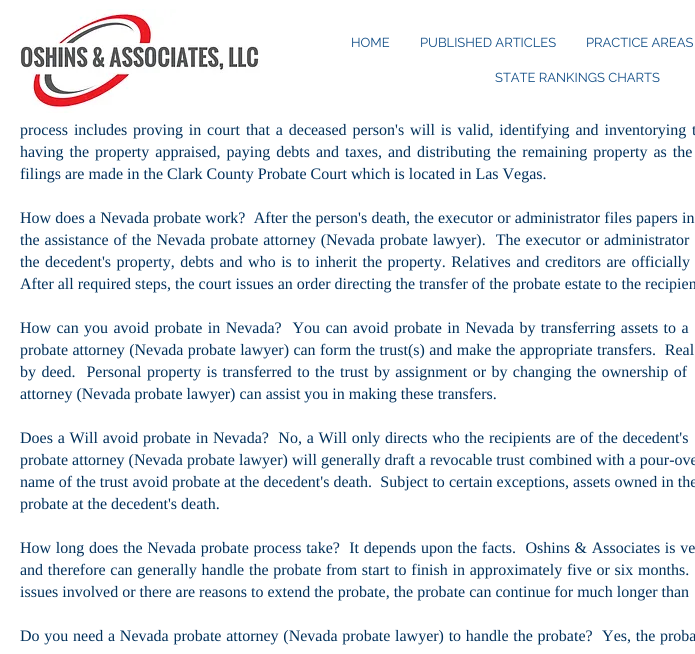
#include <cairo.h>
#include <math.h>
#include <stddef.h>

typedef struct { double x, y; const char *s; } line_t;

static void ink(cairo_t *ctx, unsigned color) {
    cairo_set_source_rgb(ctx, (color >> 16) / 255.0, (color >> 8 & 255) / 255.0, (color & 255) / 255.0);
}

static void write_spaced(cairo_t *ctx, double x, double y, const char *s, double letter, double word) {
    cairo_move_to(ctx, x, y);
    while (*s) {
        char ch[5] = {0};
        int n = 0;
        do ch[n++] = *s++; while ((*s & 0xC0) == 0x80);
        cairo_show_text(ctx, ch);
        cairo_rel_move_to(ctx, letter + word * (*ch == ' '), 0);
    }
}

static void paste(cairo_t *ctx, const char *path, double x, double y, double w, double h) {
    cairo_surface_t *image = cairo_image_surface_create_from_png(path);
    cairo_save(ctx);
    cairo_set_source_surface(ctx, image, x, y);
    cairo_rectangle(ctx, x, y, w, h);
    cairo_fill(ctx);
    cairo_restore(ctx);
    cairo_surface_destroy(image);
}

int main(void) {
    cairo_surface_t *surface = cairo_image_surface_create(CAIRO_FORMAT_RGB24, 695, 654);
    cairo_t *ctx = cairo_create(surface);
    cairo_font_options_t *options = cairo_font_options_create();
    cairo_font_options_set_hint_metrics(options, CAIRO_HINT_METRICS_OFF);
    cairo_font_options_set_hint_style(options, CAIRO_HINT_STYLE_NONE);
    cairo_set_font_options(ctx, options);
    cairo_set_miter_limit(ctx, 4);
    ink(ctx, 0xFFFFFF);
    cairo_paint(ctx);
    paste(ctx, "media/1.png", 20, 9, 240, 104);
    cairo_select_font_face(ctx, "Raleway", CAIRO_FONT_SLANT_NORMAL, CAIRO_FONT_WEIGHT_NORMAL);
    cairo_set_font_size(ctx, 13);
    ink(ctx, 0x0F4C85);
    {
        static const line_t items[] = {
            {351, 47, "HOME"},
            {420, 47, "PUBLISHED ARTICLES"},
            {586, 47, "PRACTICE AREAS"},
            {495, 82, "STATE RANKINGS CHARTS"},
        };
        for (size_t i = 0; i < sizeof items / sizeof *items; i++) {
            cairo_move_to(ctx, items[i].x, items[i].y);
            cairo_show_text(ctx, items[i].s);
        }
    }
    cairo_select_font_face(ctx, "Liberation Serif", CAIRO_FONT_SLANT_NORMAL, CAIRO_FONT_WEIGHT_NORMAL);
    cairo_set_font_size(ctx, 16);
    ink(ctx, 0x00305B);
    write_spaced(ctx, 20, 135, "process includes proving in court that a deceased person's will is valid, identifying and inventorying t", 0, 1.9);
    write_spaced(ctx, 20, 157, "having the property appraised, paying debts and taxes, and distributing the remaining property as the", 0, 2);
    cairo_move_to(ctx, 20, 179);
    cairo_show_text(ctx, "filings are made in the Clark County Probate Court which is located in Las Vegas.");
    write_spaced(ctx, 20, 223, "How does a Nevada probate work?  After the person's death, the executor or administrator files papers in", 0, 0.2);
    write_spaced(ctx, 20, 245, "the assistance of the Nevada probate attorney (Nevada probate lawyer).  The executor or administrator", 0, 1);
    write_spaced(ctx, 20, 267, "the decedent's property, debts and who is to inherit the property. Relatives and creditors are officially", 0, 1.5);
    cairo_move_to(ctx, 20, 289);
    cairo_show_text(ctx, "After all required steps, the court issues an order directing the transfer of the probate estate to the recipien");
    write_spaced(ctx, 20, 333, "How can you avoid probate in Nevada?  You can avoid probate in Nevada by transferring assets to a", 0, 1.4);
    write_spaced(ctx, 20, 355, "probate attorney (Nevada probate lawyer) can form the trust(s) and make the appropriate transfers.  Real", 0, 0.4);
    write_spaced(ctx, 20, 377, "by deed.  Personal property is transferred to the trust by assignment or by changing the ownership of", 0, 1.4);
    cairo_move_to(ctx, 20, 399);
    cairo_show_text(ctx, "attorney (Nevada probate lawyer) can assist you in making these transfers.");
    write_spaced(ctx, 20, 443, "Does a Will avoid probate in Nevada?  No, a Will only directs who the recipients are of the decedent's", 0, 0.75);
    write_spaced(ctx, 20, 465, "probate attorney (Nevada probate lawyer) will generally draft a revocable trust combined with a pour-ove", 0, 0.1);
    write_spaced(ctx, 20, 487, "name of the trust avoid probate at the decedent's death.  Subject to certain exceptions, assets owned in the", 0, 0.1);
    cairo_move_to(ctx, 20, 509);
    cairo_show_text(ctx, "probate at the decedent's death.");
    write_spaced(ctx, 20, 553, "How long does the Nevada probate process take?  It depends upon the facts.  Oshins & Associates is ve", 0, 0.7);
    write_spaced(ctx, 20, 575, "and therefore can generally handle the probate from start to finish in approximately five or six months.", 0, 0.75);
    cairo_move_to(ctx, 20, 597);
    cairo_show_text(ctx, "issues involved or there are reasons to extend the probate, the probate can continue for much longer than");
    write_spaced(ctx, 20, 641, "Do you need a Nevada probate attorney (Nevada probate lawyer) to handle the probate?  Yes, the proba", 0, 0.75);
    cairo_surface_write_to_png(surface, "image.png");
    cairo_font_options_destroy(options);
    cairo_destroy(ctx);
    cairo_surface_destroy(surface);
    return 0;
}
